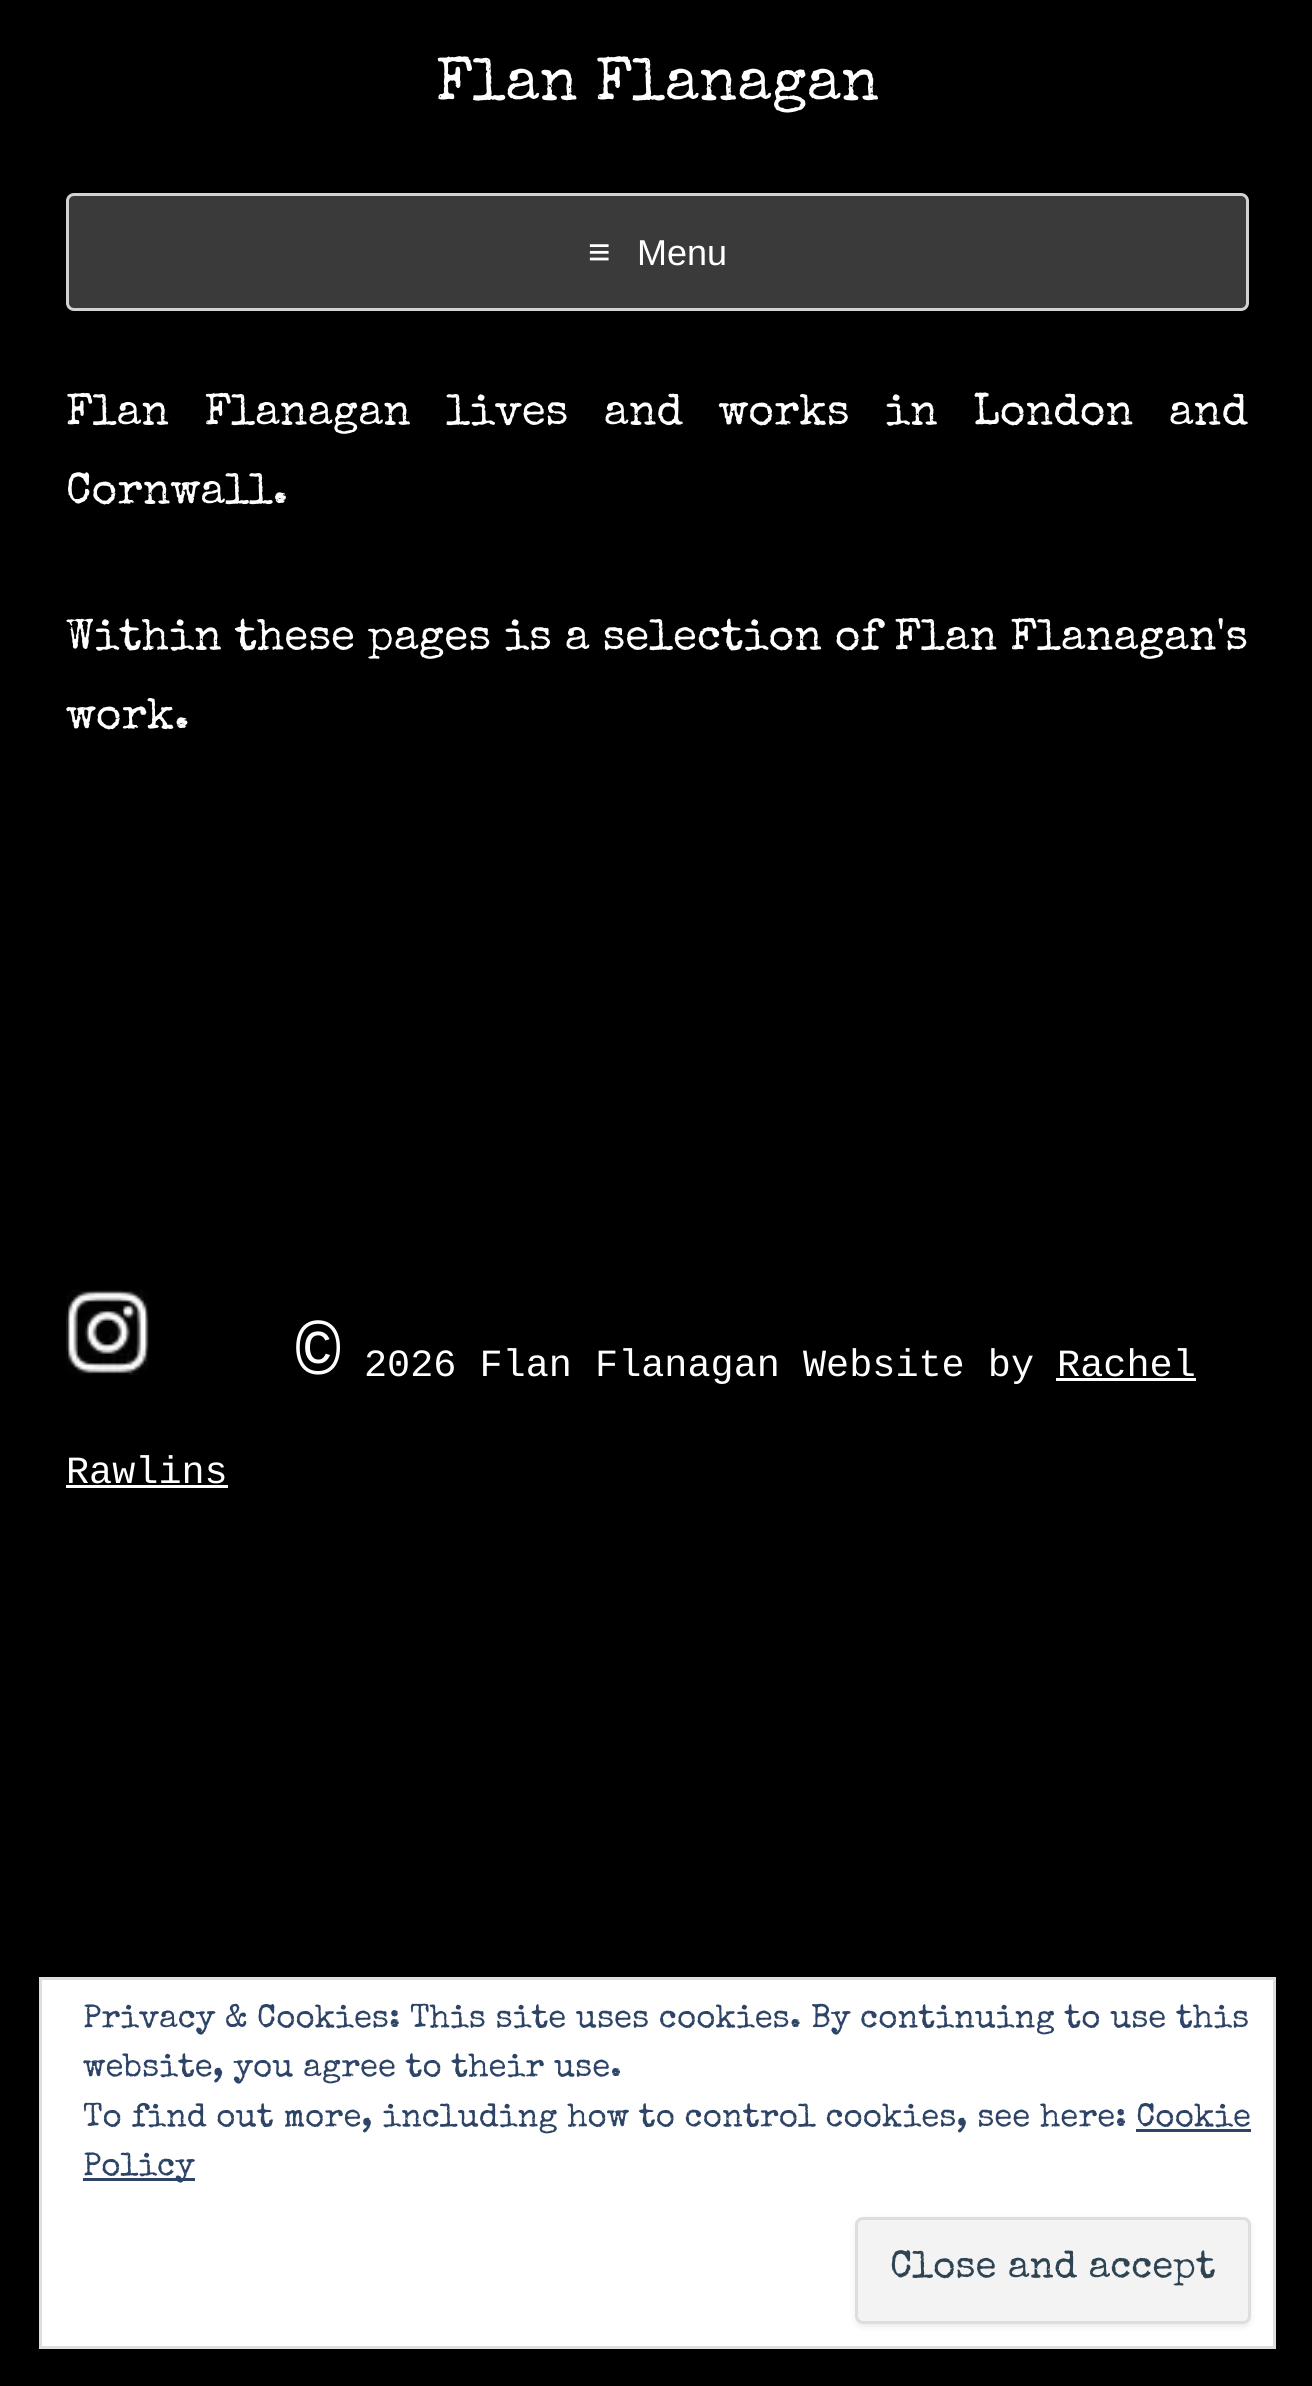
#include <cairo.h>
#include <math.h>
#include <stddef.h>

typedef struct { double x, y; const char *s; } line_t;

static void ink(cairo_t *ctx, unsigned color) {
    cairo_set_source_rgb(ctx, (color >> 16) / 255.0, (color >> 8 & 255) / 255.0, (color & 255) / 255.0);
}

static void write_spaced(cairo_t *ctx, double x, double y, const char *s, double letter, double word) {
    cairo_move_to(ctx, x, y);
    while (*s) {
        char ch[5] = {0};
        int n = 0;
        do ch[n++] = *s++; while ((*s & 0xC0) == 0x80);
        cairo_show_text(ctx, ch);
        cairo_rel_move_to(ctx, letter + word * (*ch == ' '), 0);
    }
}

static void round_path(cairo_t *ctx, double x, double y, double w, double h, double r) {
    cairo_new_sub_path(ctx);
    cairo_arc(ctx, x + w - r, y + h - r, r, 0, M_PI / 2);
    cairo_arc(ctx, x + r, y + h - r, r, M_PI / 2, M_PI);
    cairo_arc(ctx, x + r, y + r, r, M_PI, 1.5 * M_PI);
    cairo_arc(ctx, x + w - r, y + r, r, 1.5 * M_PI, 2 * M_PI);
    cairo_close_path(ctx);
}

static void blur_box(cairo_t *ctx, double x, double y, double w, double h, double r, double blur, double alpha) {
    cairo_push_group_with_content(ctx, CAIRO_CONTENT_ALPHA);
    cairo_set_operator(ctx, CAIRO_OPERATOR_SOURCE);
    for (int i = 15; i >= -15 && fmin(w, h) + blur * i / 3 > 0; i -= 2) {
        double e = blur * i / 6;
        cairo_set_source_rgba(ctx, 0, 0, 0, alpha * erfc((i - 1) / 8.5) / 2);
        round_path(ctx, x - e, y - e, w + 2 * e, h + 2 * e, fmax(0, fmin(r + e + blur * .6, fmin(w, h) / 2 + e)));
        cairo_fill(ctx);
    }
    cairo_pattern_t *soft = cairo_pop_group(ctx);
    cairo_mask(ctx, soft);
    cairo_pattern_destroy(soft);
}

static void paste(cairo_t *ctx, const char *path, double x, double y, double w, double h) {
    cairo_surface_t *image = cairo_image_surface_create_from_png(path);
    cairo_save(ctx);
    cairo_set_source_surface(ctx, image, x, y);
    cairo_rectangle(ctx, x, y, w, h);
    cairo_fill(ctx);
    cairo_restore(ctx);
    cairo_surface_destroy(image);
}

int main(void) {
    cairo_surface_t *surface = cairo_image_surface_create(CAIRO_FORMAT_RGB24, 1312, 2386);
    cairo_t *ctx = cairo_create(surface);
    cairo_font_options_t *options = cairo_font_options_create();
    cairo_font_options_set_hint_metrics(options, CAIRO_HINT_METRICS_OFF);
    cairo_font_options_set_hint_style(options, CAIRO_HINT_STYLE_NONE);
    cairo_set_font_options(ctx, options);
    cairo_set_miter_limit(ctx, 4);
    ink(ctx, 0x000000);
    cairo_paint(ctx);
    cairo_select_font_face(ctx, "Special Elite", CAIRO_FONT_SLANT_NORMAL, CAIRO_FONT_WEIGHT_NORMAL);
    cairo_set_font_size(ctx, 60.5);
    ink(ctx, 0xFFFFFF);
    cairo_move_to(ctx, 436, 99);
    cairo_show_text(ctx, "Flan Flanagan");
    ink(ctx, 0x3A3A3A);
    round_path(ctx, 67.5, 194.5, 1180, 115, 6.5);
    cairo_fill_preserve(ctx);
    ink(ctx, 0xD2D2D2);
    cairo_set_line_width(ctx, 3);
    cairo_stroke(ctx);
    cairo_select_font_face(ctx, "Liberation Sans", CAIRO_FONT_SLANT_NORMAL, CAIRO_FONT_WEIGHT_NORMAL);
    cairo_set_font_size(ctx, 38.5);
    ink(ctx, 0xFFFFFF);
    cairo_move_to(ctx, 588, 265);
    cairo_show_text(ctx, "≡");
    cairo_set_font_size(ctx, 36);
    cairo_move_to(ctx, 637, 265);
    cairo_show_text(ctx, "Menu");
    cairo_select_font_face(ctx, "Special Elite", CAIRO_FONT_SLANT_NORMAL, CAIRO_FONT_WEIGHT_NORMAL);
    cairo_set_font_size(ctx, 44);
    write_spaced(ctx, 66, 424, "Flan Flanagan lives and works in London and", 0, 22.5);
    {
        static const line_t items[] = {
            {66, 503, "Cornwall."},
            {66, 649, "Within these pages is a selection of Flan Flanagan's"},
            {66, 728, "work."},
        };
        for (size_t i = 0; i < sizeof items / sizeof *items; i++) {
            cairo_move_to(ctx, items[i].x, items[i].y);
            cairo_show_text(ctx, items[i].s);
        }
    }
    paste(ctx, "media/1.png", 66, 1290, 83, 85);
    cairo_select_font_face(ctx, "Liberation Mono", CAIRO_FONT_SLANT_NORMAL, CAIRO_FONT_WEIGHT_NORMAL);
    cairo_set_font_size(ctx, 77);
    cairo_move_to(ctx, 295, 1376);
    cairo_show_text(ctx, "©");
    cairo_set_font_size(ctx, 38.5);
    cairo_move_to(ctx, 364, 1376);
    cairo_show_text(ctx, "2026 Flan Flanagan Website by Rachel");
    cairo_rectangle(ctx, 1056, 1378, 140, 3);
    cairo_fill(ctx);
    cairo_move_to(ctx, 66, 1483);
    cairo_show_text(ctx, "Rawlins");
    cairo_rectangle(ctx, 66, 1485, 162, 3);
    cairo_fill(ctx);
    cairo_rectangle(ctx, 40.5, 1978.5, 1234, 369);
    cairo_fill_preserve(ctx);
    ink(ctx, 0xDEDEDE);
    cairo_stroke(ctx);
    cairo_select_font_face(ctx, "Special Elite", CAIRO_FONT_SLANT_NORMAL, CAIRO_FONT_WEIGHT_NORMAL);
    cairo_set_font_size(ctx, 33);
    ink(ctx, 0x2E4467);
    {
        static const line_t items[] = {
            {83, 2027, "Privacy & Cookies: This site uses cookies. By continuing to use this"},
            {83, 2076, "website, you agree to their use."},
            {83, 2126, "To find out more, including how to control cookies, see here: Cookie"},
        };
        for (size_t i = 0; i < sizeof items / sizeof *items; i++) {
            cairo_move_to(ctx, items[i].x, items[i].y);
            cairo_show_text(ctx, items[i].s);
        }
    }
    cairo_rectangle(ctx, 83, 2178, 112, 3);
    cairo_fill(ctx);
    cairo_move_to(ctx, 83, 2175);
    cairo_show_text(ctx, "Policy");
    cairo_rectangle(ctx, 1136, 2129, 115, 3);
    cairo_fill(ctx);
    ink(ctx, 0x404040);
    blur_box(ctx, 855, 2219, 396, 108, 8, 3, 0.1);
    ink(ctx, 0xF3F3F3);
    round_path(ctx, 856.5, 2218.5, 393, 104, 6.5);
    cairo_fill_preserve(ctx);
    ink(ctx, 0xDEDEDE);
    cairo_stroke(ctx);
    cairo_set_font_size(ctx, 38.5);
    ink(ctx, 0x2E4453);
    cairo_move_to(ctx, 890, 2277);
    cairo_show_text(ctx, "Close and accept");
    cairo_surface_write_to_png(surface, "image.png");
    cairo_font_options_destroy(options);
    cairo_destroy(ctx);
    cairo_surface_destroy(surface);
    return 0;
}
